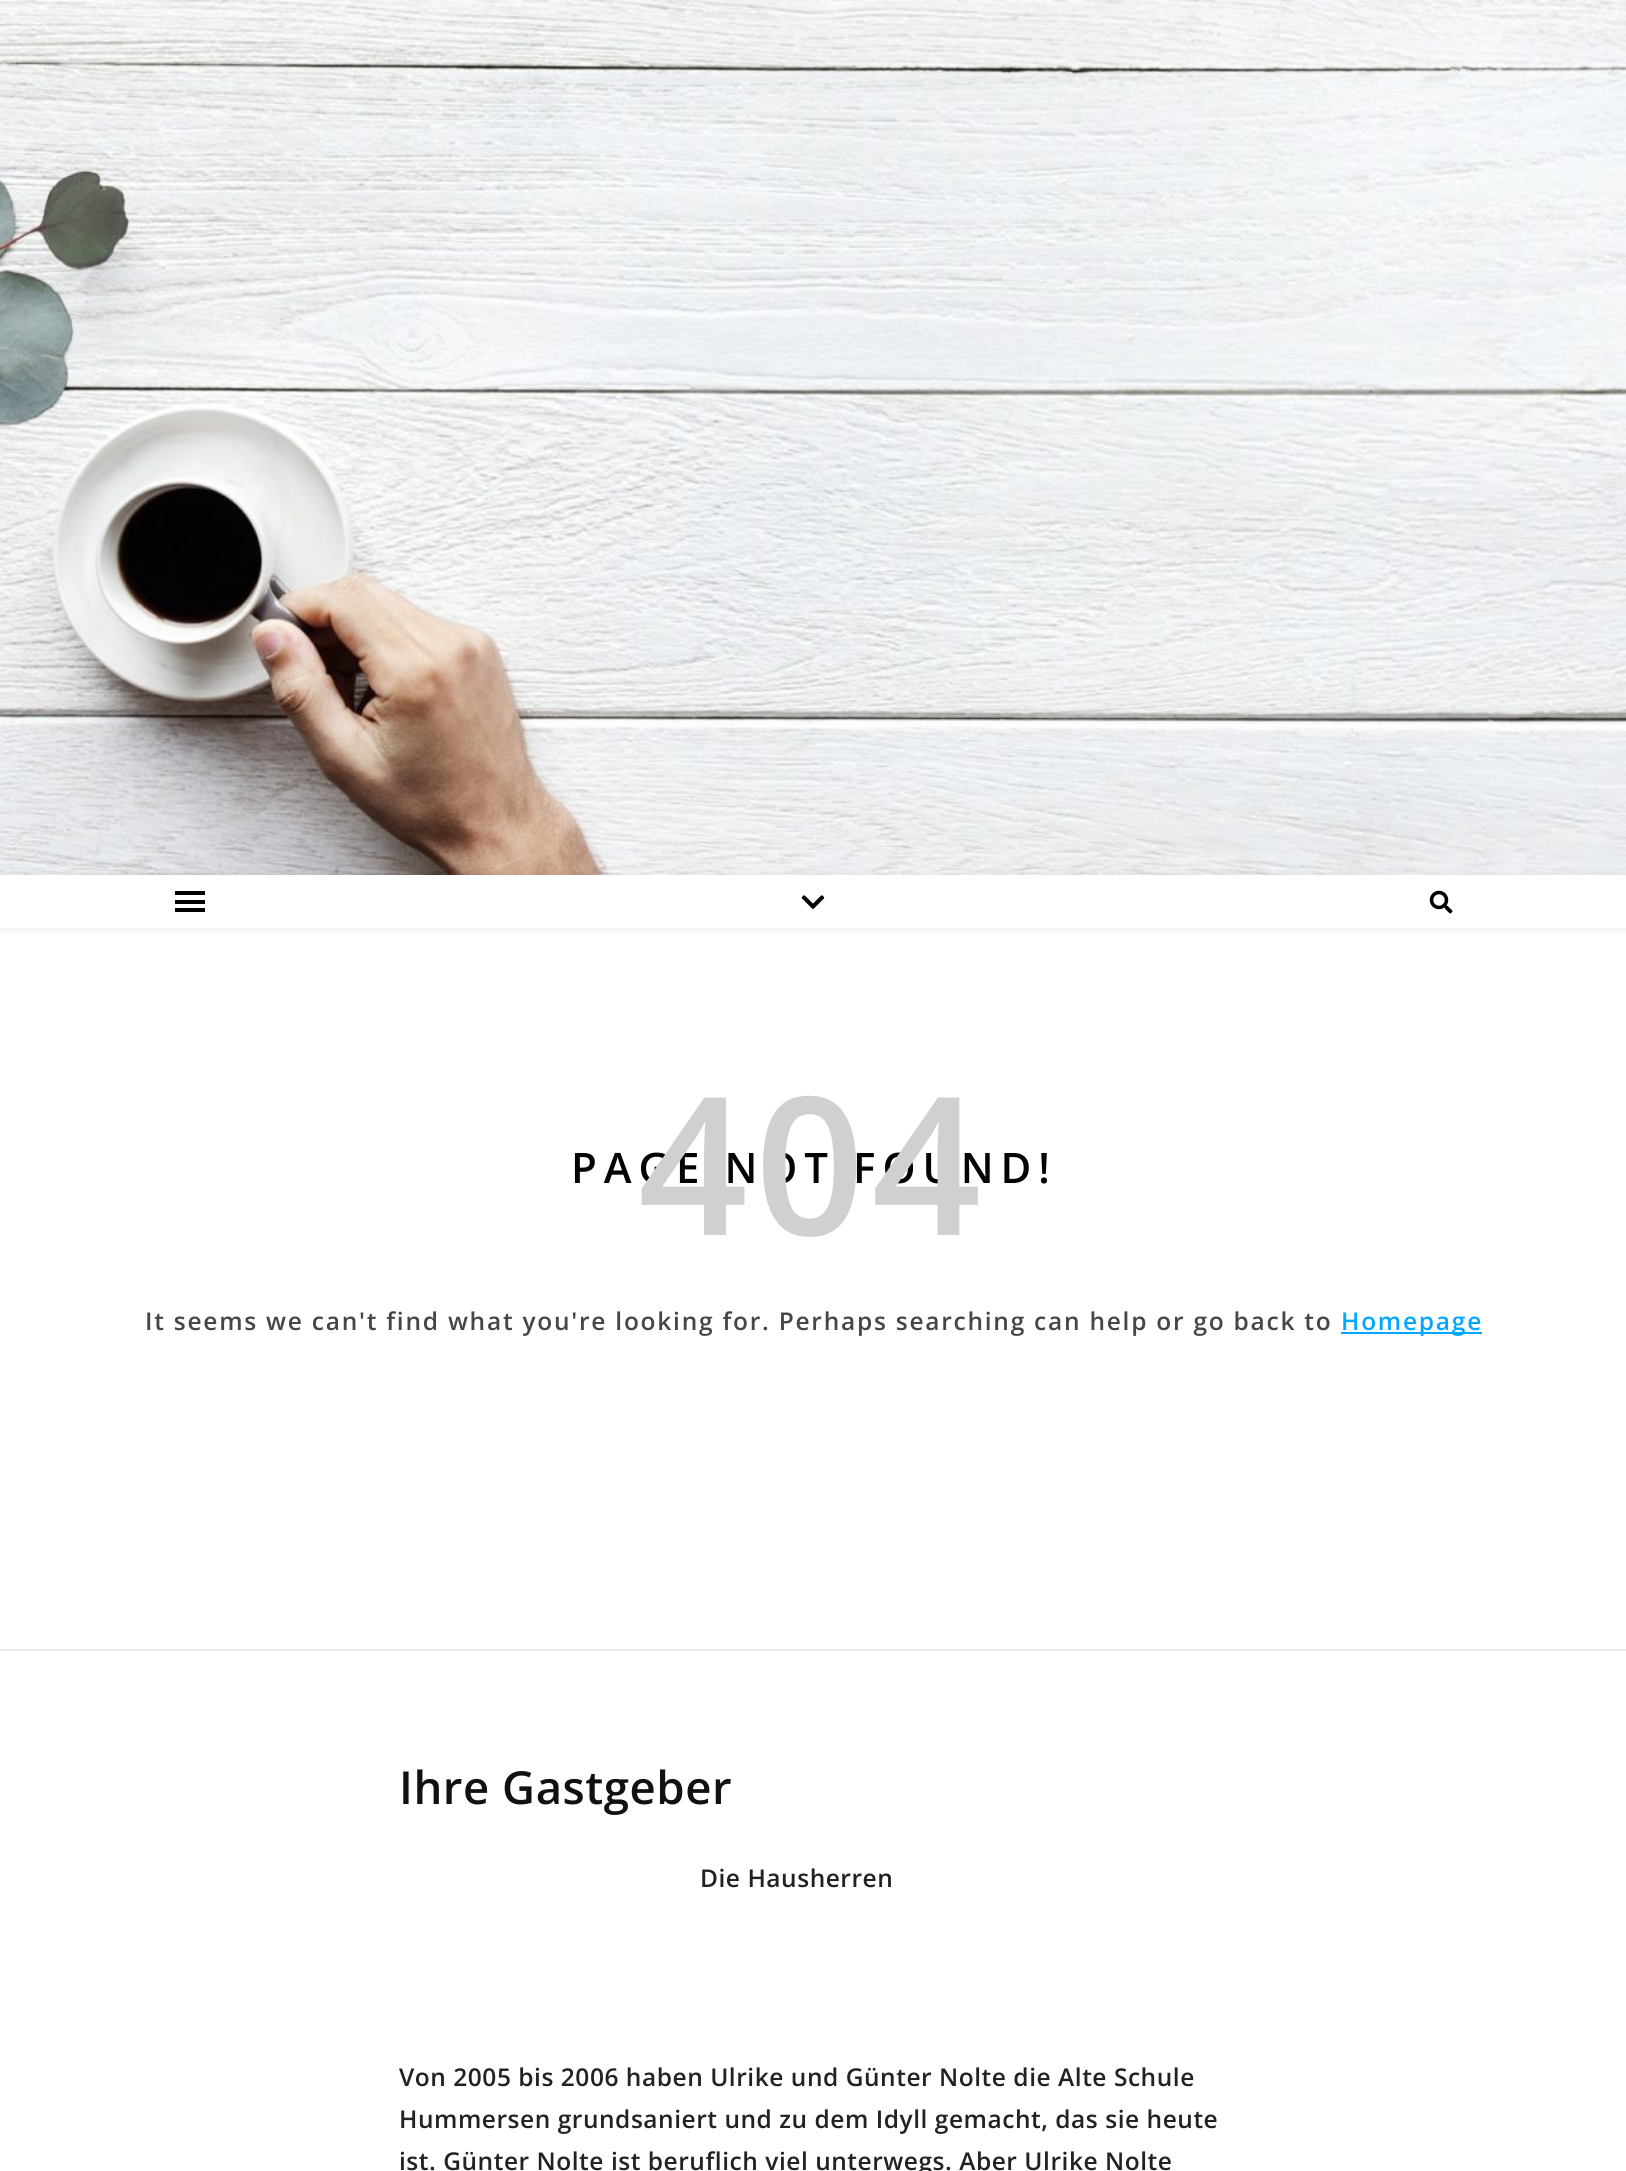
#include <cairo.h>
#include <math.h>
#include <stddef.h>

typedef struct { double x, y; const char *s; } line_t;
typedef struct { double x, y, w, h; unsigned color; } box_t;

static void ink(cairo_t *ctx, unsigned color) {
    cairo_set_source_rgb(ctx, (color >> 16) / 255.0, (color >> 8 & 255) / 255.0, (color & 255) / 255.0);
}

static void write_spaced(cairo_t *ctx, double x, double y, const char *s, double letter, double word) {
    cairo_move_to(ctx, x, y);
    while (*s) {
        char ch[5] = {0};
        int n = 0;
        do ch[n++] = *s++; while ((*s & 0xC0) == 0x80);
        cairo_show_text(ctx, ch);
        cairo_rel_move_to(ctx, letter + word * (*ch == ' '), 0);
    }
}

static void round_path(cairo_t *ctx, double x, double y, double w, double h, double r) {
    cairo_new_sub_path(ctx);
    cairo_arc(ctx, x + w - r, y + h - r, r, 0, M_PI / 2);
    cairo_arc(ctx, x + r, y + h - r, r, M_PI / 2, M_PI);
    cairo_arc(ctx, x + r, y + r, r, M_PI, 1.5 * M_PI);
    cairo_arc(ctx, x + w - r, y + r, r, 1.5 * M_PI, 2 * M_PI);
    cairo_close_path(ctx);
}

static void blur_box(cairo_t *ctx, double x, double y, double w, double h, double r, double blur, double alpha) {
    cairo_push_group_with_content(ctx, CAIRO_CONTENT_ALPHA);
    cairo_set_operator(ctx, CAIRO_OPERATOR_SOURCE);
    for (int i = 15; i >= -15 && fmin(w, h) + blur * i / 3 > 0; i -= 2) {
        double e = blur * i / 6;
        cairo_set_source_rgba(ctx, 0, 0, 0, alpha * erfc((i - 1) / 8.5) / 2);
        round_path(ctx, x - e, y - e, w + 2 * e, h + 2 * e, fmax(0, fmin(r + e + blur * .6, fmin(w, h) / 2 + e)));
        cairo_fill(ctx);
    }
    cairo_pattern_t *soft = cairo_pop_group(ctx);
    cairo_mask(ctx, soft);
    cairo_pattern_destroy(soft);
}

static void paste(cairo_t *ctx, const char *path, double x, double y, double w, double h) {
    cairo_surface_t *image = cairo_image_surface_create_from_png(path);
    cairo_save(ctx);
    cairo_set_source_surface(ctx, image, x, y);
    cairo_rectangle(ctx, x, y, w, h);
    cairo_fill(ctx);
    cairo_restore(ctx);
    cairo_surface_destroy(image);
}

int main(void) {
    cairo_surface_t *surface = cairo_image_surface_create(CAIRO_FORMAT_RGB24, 1626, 2171);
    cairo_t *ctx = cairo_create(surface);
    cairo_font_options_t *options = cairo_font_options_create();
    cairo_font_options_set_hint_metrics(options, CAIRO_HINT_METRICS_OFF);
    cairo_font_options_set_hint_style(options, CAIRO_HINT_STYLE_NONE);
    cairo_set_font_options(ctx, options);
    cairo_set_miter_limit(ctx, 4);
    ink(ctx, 0xFFFFFF);
    cairo_paint(ctx);
    paste(ctx, "media/1.png", 0, 0, 1626, 875);
    ink(ctx, 0x000000);
    blur_box(ctx, 0, 877, 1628, 52, 0, 4.5, 0.1);
    {
        static const box_t items[] = {
            {0, 875, 1626, 53, 0xFFFFFF},
            {175, 891, 30, 4, 0x000000},
            {175, 900, 30, 4, 0x000000},
            {175, 908, 30, 4, 0x000000},
        };
        for (size_t i = 0; i < sizeof items / sizeof *items; i++) {
            ink(ctx, items[i].color);
            cairo_rectangle(ctx, items[i].x, items[i].y, items[i].w, items[i].h);
            cairo_fill(ctx);
        }
    }
    paste(ctx, "media/2.png", 801, 895, 24, 14);
    paste(ctx, "media/3.png", 1429, 890, 24, 24);
    cairo_select_font_face(ctx, "Open Sans SemiBold", CAIRO_FONT_SLANT_NORMAL, CAIRO_FONT_WEIGHT_NORMAL);
    cairo_set_font_size(ctx, 42);
    ink(ctx, 0x030303);
    write_spaced(ctx, 571, 1183, "PAGE NOT FOUND!", 7, 0);
    cairo_set_font_size(ctx, 192);
    ink(ctx, 0xD0D0D0);
    write_spaced(ctx, 638, 1235, "404", 7, 0);
    cairo_set_font_size(ctx, 24.5);
    ink(ctx, 0x464646);
    write_spaced(ctx, 145, 1330, "It seems we can't find what you're looking for. Perhaps searching can help or go back to", 1.75, 0);
    ink(ctx, 0x00A9FF);
    cairo_rectangle(ctx, 1341, 1332, 141, 2);
    cairo_fill(ctx);
    write_spaced(ctx, 1341, 1330, "Homepage", 1.75, 0);
    ink(ctx, 0xE8E8E8);
    cairo_rectangle(ctx, 0, 1649, 1626, 2);
    cairo_fill(ctx);
    cairo_set_font_size(ctx, 45.5);
    ink(ctx, 0x111111);
    write_spaced(ctx, 399, 1804, "Ihre Gastgeber", 0.53, 0);
    cairo_set_font_size(ctx, 24.5);
    ink(ctx, 0x222222);
    {
        static const line_t items[] = {
            {700, 1887, "Die Hausherren"},
            {399, 2086, "Von 2005 bis 2006 haben Ulrike und Günter Nolte die Alte Schule"},
            {399, 2128, "Hummersen grundsaniert und zu dem Idyll gemacht, das sie heute"},
            {399, 2170, "ist. Günter Nolte ist beruflich viel unterwegs. Aber Ulrike Nolte"},
        };
        for (size_t i = 0; i < sizeof items / sizeof *items; i++) {
            write_spaced(ctx, items[i].x, items[i].y, items[i].s, 0.53, 0);
        }
    }
    cairo_surface_write_to_png(surface, "image.png");
    cairo_font_options_destroy(options);
    cairo_destroy(ctx);
    cairo_surface_destroy(surface);
    return 0;
}
